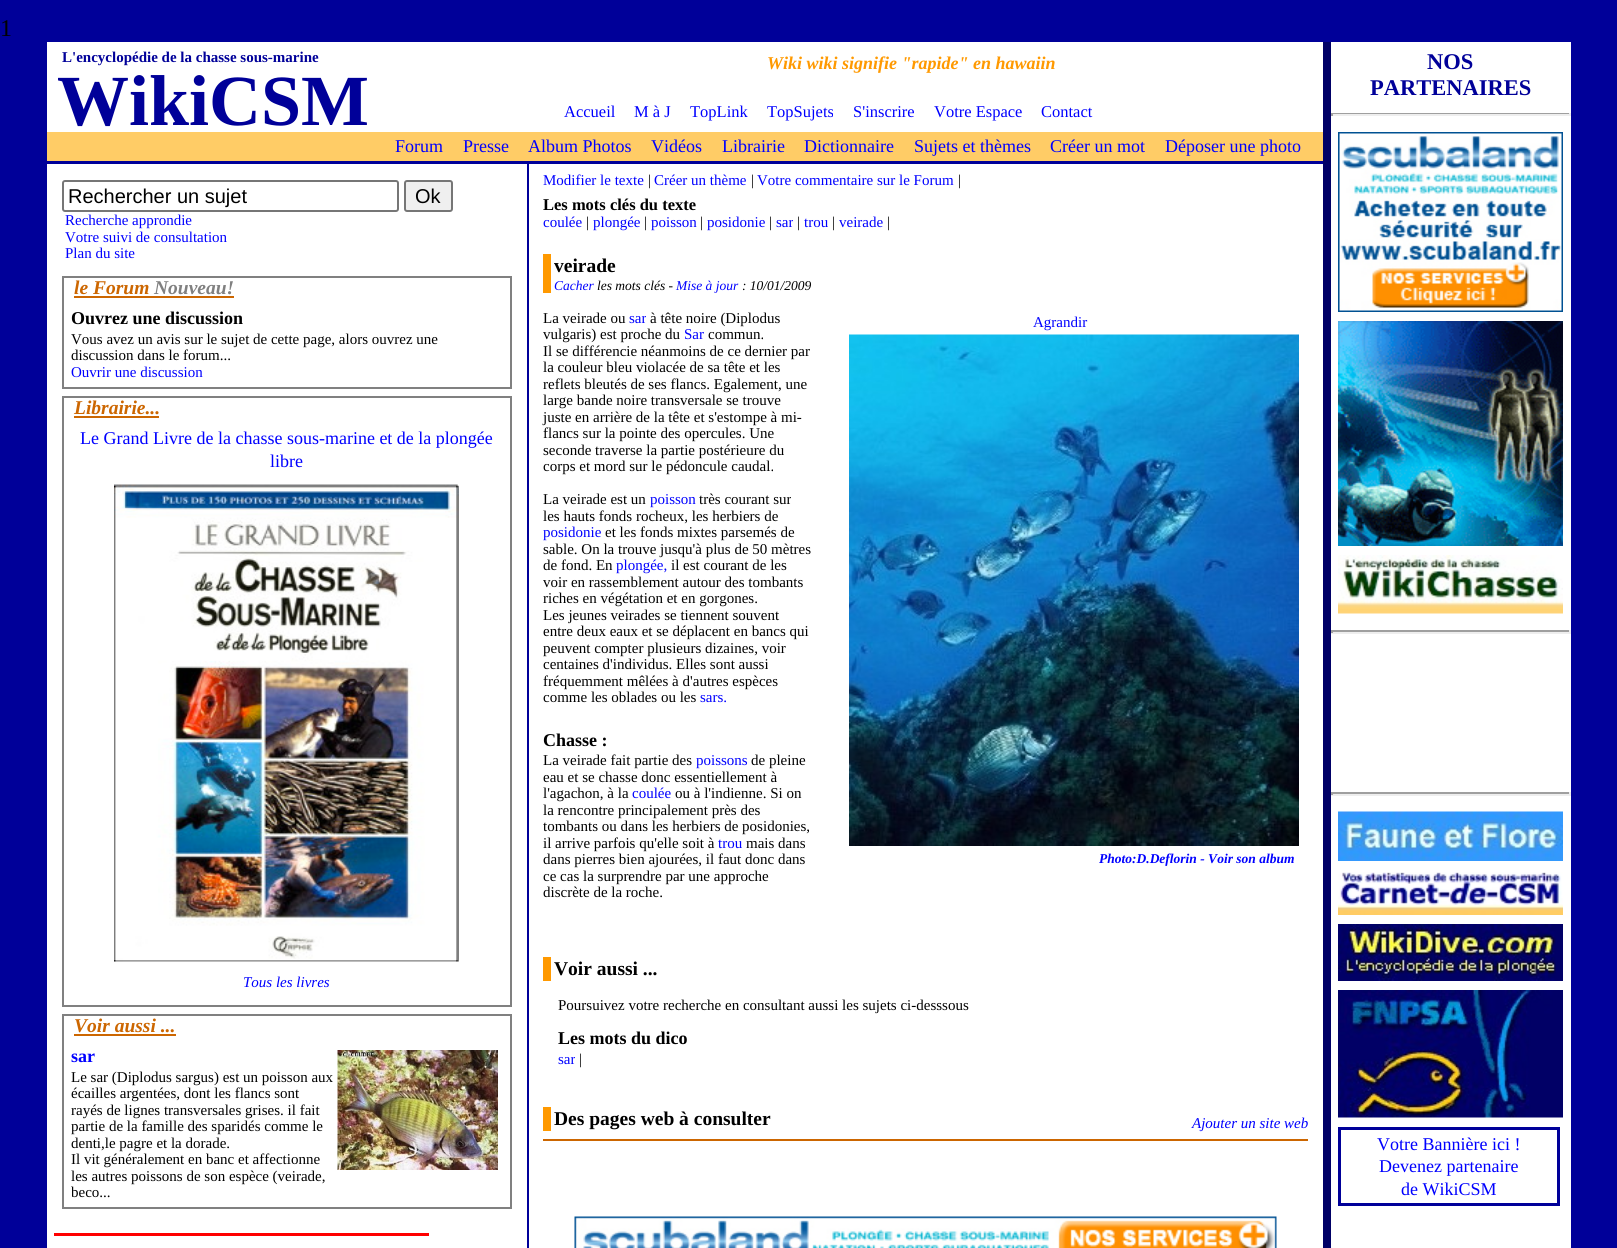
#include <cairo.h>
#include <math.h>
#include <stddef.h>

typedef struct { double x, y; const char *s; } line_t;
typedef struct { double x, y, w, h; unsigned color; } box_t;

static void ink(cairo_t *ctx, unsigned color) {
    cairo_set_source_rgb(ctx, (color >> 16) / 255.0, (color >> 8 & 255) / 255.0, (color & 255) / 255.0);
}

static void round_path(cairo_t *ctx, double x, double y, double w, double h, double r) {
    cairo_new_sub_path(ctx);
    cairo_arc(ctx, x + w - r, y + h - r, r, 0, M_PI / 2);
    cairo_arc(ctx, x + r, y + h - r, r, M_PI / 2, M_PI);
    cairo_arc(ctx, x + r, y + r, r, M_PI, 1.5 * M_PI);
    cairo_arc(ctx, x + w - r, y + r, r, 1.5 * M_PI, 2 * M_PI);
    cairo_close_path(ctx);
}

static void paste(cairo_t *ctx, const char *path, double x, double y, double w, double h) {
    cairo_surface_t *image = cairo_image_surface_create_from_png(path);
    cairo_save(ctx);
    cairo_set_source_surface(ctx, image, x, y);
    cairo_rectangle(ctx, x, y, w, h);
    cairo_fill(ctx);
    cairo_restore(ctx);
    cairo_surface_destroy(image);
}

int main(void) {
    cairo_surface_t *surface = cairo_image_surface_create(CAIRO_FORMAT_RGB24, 1617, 1248);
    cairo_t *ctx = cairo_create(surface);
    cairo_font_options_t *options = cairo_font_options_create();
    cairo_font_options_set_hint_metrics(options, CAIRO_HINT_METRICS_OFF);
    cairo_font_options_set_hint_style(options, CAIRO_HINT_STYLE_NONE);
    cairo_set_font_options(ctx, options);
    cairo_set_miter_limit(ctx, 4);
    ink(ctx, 0x000099);
    cairo_paint(ctx);
    cairo_select_font_face(ctx, "Liberation Serif", CAIRO_FONT_SLANT_NORMAL, CAIRO_FONT_WEIGHT_NORMAL);
    cairo_set_font_size(ctx, 24);
    ink(ctx, 0x000000);
    cairo_move_to(ctx, 0, 36);
    cairo_show_text(ctx, "1");
    ink(ctx, 0xFFFFFF);
    cairo_rectangle(ctx, 47, 42, 1524, 1206);
    cairo_fill(ctx);
    cairo_select_font_face(ctx, "Liberation Serif", CAIRO_FONT_SLANT_NORMAL, CAIRO_FONT_WEIGHT_BOLD);
    cairo_set_font_size(ctx, 15);
    ink(ctx, 0x000099);
    cairo_move_to(ctx, 62, 62);
    cairo_show_text(ctx, "L'encyclopédie de la chasse sous-marine");
    cairo_select_font_face(ctx, "Liberation Serif", CAIRO_FONT_SLANT_ITALIC, CAIRO_FONT_WEIGHT_BOLD);
    cairo_set_font_size(ctx, 18);
    ink(ctx, 0xFF9900);
    cairo_move_to(ctx, 767, 69);
    cairo_show_text(ctx, "Wiki wiki signifie \"rapide\" en hawaiin");
    cairo_select_font_face(ctx, "Liberation Serif", CAIRO_FONT_SLANT_NORMAL, CAIRO_FONT_WEIGHT_BOLD);
    cairo_set_font_size(ctx, 72);
    ink(ctx, 0x000099);
    cairo_move_to(ctx, 57, 125);
    cairo_show_text(ctx, "WikiCSM");
    cairo_select_font_face(ctx, "Liberation Serif", CAIRO_FONT_SLANT_NORMAL, CAIRO_FONT_WEIGHT_NORMAL);
    cairo_set_font_size(ctx, 16.5);
    ink(ctx, 0x0000FF);
    {
        static const line_t items[] = {
            {564, 117, "Accueil"},
            {634, 117, "M à J"},
            {690, 117, "TopLink"},
            {767, 117, "TopSujets"},
            {853, 117, "S'inscrire"},
            {934, 117, "Votre Espace"},
            {1041, 117, "Contact"},
        };
        for (size_t i = 0; i < sizeof items / sizeof *items; i++) {
            cairo_move_to(ctx, items[i].x, items[i].y);
            cairo_show_text(ctx, items[i].s);
        }
    }
    ink(ctx, 0xFFCC66);
    cairo_rectangle(ctx, 47, 132, 1276, 29);
    cairo_fill(ctx);
    ink(ctx, 0x000099);
    cairo_rectangle(ctx, 47, 161, 1276, 3);
    cairo_fill(ctx);
    cairo_set_font_size(ctx, 18);
    ink(ctx, 0x0000FF);
    {
        static const line_t items[] = {
            {395, 152, "Forum"},
            {463, 152, "Presse"},
            {528, 152, "Album Photos"},
            {651, 152, "Vidéos"},
            {722, 152, "Librairie"},
            {804, 152, "Dictionnaire"},
            {914, 152, "Sujets et thèmes"},
            {1050, 152, "Créer un mot"},
            {1165, 152, "Déposer une photo"},
        };
        for (size_t i = 0; i < sizeof items / sizeof *items; i++) {
            cairo_move_to(ctx, items[i].x, items[i].y);
            cairo_show_text(ctx, items[i].s);
        }
    }
    round_path(ctx, 63, 181, 335, 30, 2);
    ink(ctx, 0x767676);
    cairo_stroke(ctx);
    cairo_select_font_face(ctx, "Liberation Sans", CAIRO_FONT_SLANT_NORMAL, CAIRO_FONT_WEIGHT_NORMAL);
    cairo_set_font_size(ctx, 20);
    ink(ctx, 0x000000);
    cairo_move_to(ctx, 68, 203);
    cairo_show_text(ctx, "Rechercher un sujet");
    ink(ctx, 0xEFEFEF);
    round_path(ctx, 405, 181, 47, 30, 2);
    cairo_fill_preserve(ctx);
    ink(ctx, 0x767676);
    cairo_stroke(ctx);
    ink(ctx, 0x000000);
    cairo_move_to(ctx, 415, 203);
    cairo_show_text(ctx, "Ok");
    cairo_select_font_face(ctx, "Liberation Serif", CAIRO_FONT_SLANT_NORMAL, CAIRO_FONT_WEIGHT_NORMAL);
    cairo_set_font_size(ctx, 15);
    ink(ctx, 0x0000FF);
    {
        static const line_t items[] = {
            {65, 225, "Recherche approndie"},
            {65, 242, "Votre suivi de consultation"},
            {65, 258, "Plan du site"},
        };
        for (size_t i = 0; i < sizeof items / sizeof *items; i++) {
            cairo_move_to(ctx, items[i].x, items[i].y);
            cairo_show_text(ctx, items[i].s);
        }
    }
    cairo_rectangle(ctx, 63, 277, 448, 111);
    ink(ctx, 0x808080);
    cairo_stroke(ctx);
    cairo_select_font_face(ctx, "Liberation Serif", CAIRO_FONT_SLANT_ITALIC, CAIRO_FONT_WEIGHT_BOLD);
    cairo_set_font_size(ctx, 19.5);
    ink(ctx, 0xCC6600);
    cairo_move_to(ctx, 74, 294);
    cairo_show_text(ctx, "le Forum");
    cairo_rectangle(ctx, 74, 296, 160, 2);
    cairo_fill(ctx);
    ink(ctx, 0x808080);
    cairo_move_to(ctx, 154, 294);
    cairo_show_text(ctx, "Nouveau!");
    cairo_select_font_face(ctx, "Liberation Serif", CAIRO_FONT_SLANT_NORMAL, CAIRO_FONT_WEIGHT_BOLD);
    cairo_set_font_size(ctx, 18);
    ink(ctx, 0x000000);
    cairo_move_to(ctx, 71, 324);
    cairo_show_text(ctx, "Ouvrez une discussion");
    cairo_select_font_face(ctx, "Liberation Serif", CAIRO_FONT_SLANT_NORMAL, CAIRO_FONT_WEIGHT_NORMAL);
    cairo_set_font_size(ctx, 15);
    cairo_move_to(ctx, 71, 344);
    cairo_show_text(ctx, "Vous avez un avis sur le sujet de cette page, alors ouvrez une");
    cairo_move_to(ctx, 71, 360);
    cairo_show_text(ctx, "discussion dans le forum...");
    ink(ctx, 0x0000FF);
    cairo_move_to(ctx, 71, 377);
    cairo_show_text(ctx, "Ouvrir une discussion");
    cairo_rectangle(ctx, 63, 397, 448, 609);
    ink(ctx, 0x808080);
    cairo_stroke(ctx);
    cairo_select_font_face(ctx, "Liberation Serif", CAIRO_FONT_SLANT_ITALIC, CAIRO_FONT_WEIGHT_BOLD);
    cairo_set_font_size(ctx, 19.5);
    ink(ctx, 0xCC6600);
    cairo_move_to(ctx, 74, 414);
    cairo_show_text(ctx, "Librairie...");
    cairo_rectangle(ctx, 74, 416, 85, 2);
    cairo_fill(ctx);
    cairo_select_font_face(ctx, "Liberation Serif", CAIRO_FONT_SLANT_NORMAL, CAIRO_FONT_WEIGHT_NORMAL);
    cairo_set_font_size(ctx, 18);
    ink(ctx, 0x0000FF);
    cairo_move_to(ctx, 80, 444);
    cairo_show_text(ctx, "Le Grand Livre de la chasse sous-marine et de la plongée");
    cairo_move_to(ctx, 270, 467);
    cairo_show_text(ctx, "libre");
    paste(ctx, "media/1.png", 114, 484, 345, 478);
    cairo_select_font_face(ctx, "Liberation Serif", CAIRO_FONT_SLANT_ITALIC, CAIRO_FONT_WEIGHT_NORMAL);
    cairo_set_font_size(ctx, 15);
    cairo_move_to(ctx, 243, 987);
    cairo_show_text(ctx, "Tous les livres");
    cairo_rectangle(ctx, 63, 1015, 448, 193);
    ink(ctx, 0x808080);
    cairo_stroke(ctx);
    cairo_select_font_face(ctx, "Liberation Serif", CAIRO_FONT_SLANT_ITALIC, CAIRO_FONT_WEIGHT_BOLD);
    cairo_set_font_size(ctx, 19.5);
    ink(ctx, 0xCC6600);
    cairo_move_to(ctx, 74, 1032);
    cairo_show_text(ctx, "Voir aussi ...");
    cairo_rectangle(ctx, 74, 1034, 102, 2);
    cairo_fill(ctx);
    cairo_select_font_face(ctx, "Liberation Serif", CAIRO_FONT_SLANT_NORMAL, CAIRO_FONT_WEIGHT_BOLD);
    cairo_set_font_size(ctx, 18);
    ink(ctx, 0x0000FF);
    cairo_move_to(ctx, 71, 1062);
    cairo_show_text(ctx, "sar");
    paste(ctx, "media/2.png", 337, 1050, 161, 120);
    cairo_select_font_face(ctx, "Liberation Serif", CAIRO_FONT_SLANT_NORMAL, CAIRO_FONT_WEIGHT_NORMAL);
    cairo_set_font_size(ctx, 15);
    ink(ctx, 0x000000);
    {
        static const line_t items[] = {
            {71, 1082, "Le sar (Diplodus sargus) est un poisson aux"},
            {71, 1098, "écailles argentées, dont les flancs sont"},
            {71, 1115, "rayés de lignes transversales grises. il fait"},
            {71, 1131, "partie de la famille des sparidés comme le"},
            {71, 1148, "denti,le pagre et la dorade."},
            {71, 1164, "Il vit généralement en banc et affectionne"},
            {71, 1181, "les autres poissons de son espèce (veirade,"},
            {71, 1197, "beco..."},
        };
        for (size_t i = 0; i < sizeof items / sizeof *items; i++) {
            cairo_move_to(ctx, items[i].x, items[i].y);
            cairo_show_text(ctx, items[i].s);
        }
    }
    ink(ctx, 0xFF0000);
    cairo_rectangle(ctx, 54, 1233, 375, 3);
    cairo_fill(ctx);
    ink(ctx, 0x000099);
    cairo_rectangle(ctx, 527, 164, 2, 1084);
    cairo_fill(ctx);
    ink(ctx, 0x0000FF);
    cairo_move_to(ctx, 543, 185);
    cairo_show_text(ctx, "Modifier le texte");
    ink(ctx, 0x000000);
    cairo_move_to(ctx, 648, 185);
    cairo_show_text(ctx, "|");
    ink(ctx, 0x0000FF);
    cairo_move_to(ctx, 654, 185);
    cairo_show_text(ctx, "Créer un thème");
    ink(ctx, 0x000000);
    cairo_move_to(ctx, 751, 185);
    cairo_show_text(ctx, "|");
    ink(ctx, 0x0000FF);
    cairo_move_to(ctx, 757, 185);
    cairo_show_text(ctx, "Votre commentaire sur le Forum");
    ink(ctx, 0x000000);
    cairo_move_to(ctx, 958, 185);
    cairo_show_text(ctx, "|");
    cairo_select_font_face(ctx, "Liberation Serif", CAIRO_FONT_SLANT_NORMAL, CAIRO_FONT_WEIGHT_BOLD);
    cairo_set_font_size(ctx, 16.5);
    cairo_move_to(ctx, 543, 210);
    cairo_show_text(ctx, "Les mots clés du texte");
    cairo_select_font_face(ctx, "Liberation Serif", CAIRO_FONT_SLANT_NORMAL, CAIRO_FONT_WEIGHT_NORMAL);
    cairo_set_font_size(ctx, 15);
    ink(ctx, 0x0000FF);
    cairo_move_to(ctx, 543, 227);
    cairo_show_text(ctx, "coulée");
    ink(ctx, 0x000000);
    cairo_move_to(ctx, 586, 227);
    cairo_show_text(ctx, "|");
    ink(ctx, 0x0000FF);
    cairo_move_to(ctx, 593, 227);
    cairo_show_text(ctx, "plongée");
    ink(ctx, 0x000000);
    cairo_move_to(ctx, 644, 227);
    cairo_show_text(ctx, "|");
    ink(ctx, 0x0000FF);
    cairo_move_to(ctx, 651, 227);
    cairo_show_text(ctx, "poisson");
    ink(ctx, 0x000000);
    cairo_move_to(ctx, 700, 227);
    cairo_show_text(ctx, "|");
    ink(ctx, 0x0000FF);
    cairo_move_to(ctx, 707, 227);
    cairo_show_text(ctx, "posidonie");
    ink(ctx, 0x000000);
    cairo_move_to(ctx, 769, 227);
    cairo_show_text(ctx, "|");
    ink(ctx, 0x0000FF);
    cairo_move_to(ctx, 776, 227);
    cairo_show_text(ctx, "sar");
    ink(ctx, 0x000000);
    cairo_move_to(ctx, 797, 227);
    cairo_show_text(ctx, "|");
    ink(ctx, 0x0000FF);
    cairo_move_to(ctx, 804, 227);
    cairo_show_text(ctx, "trou");
    ink(ctx, 0x000000);
    cairo_move_to(ctx, 832, 227);
    cairo_show_text(ctx, "|");
    ink(ctx, 0x0000FF);
    cairo_move_to(ctx, 839, 227);
    cairo_show_text(ctx, "veirade");
    ink(ctx, 0x000000);
    cairo_move_to(ctx, 887, 227);
    cairo_show_text(ctx, "|");
    ink(ctx, 0xFF9900);
    cairo_rectangle(ctx, 543, 254, 8, 39);
    cairo_fill(ctx);
    cairo_select_font_face(ctx, "Liberation Serif", CAIRO_FONT_SLANT_NORMAL, CAIRO_FONT_WEIGHT_BOLD);
    cairo_set_font_size(ctx, 19.5);
    ink(ctx, 0x000000);
    cairo_move_to(ctx, 554, 272);
    cairo_show_text(ctx, "veirade");
    cairo_select_font_face(ctx, "Liberation Serif", CAIRO_FONT_SLANT_ITALIC, CAIRO_FONT_WEIGHT_NORMAL);
    cairo_set_font_size(ctx, 13.5);
    ink(ctx, 0x0000FF);
    cairo_move_to(ctx, 554, 290);
    cairo_show_text(ctx, "Cacher");
    ink(ctx, 0x000000);
    cairo_move_to(ctx, 597, 290);
    cairo_show_text(ctx, "les mots clés -");
    ink(ctx, 0x0000FF);
    cairo_move_to(ctx, 676, 290);
    cairo_show_text(ctx, "Mise à jour");
    ink(ctx, 0x000000);
    cairo_move_to(ctx, 742, 290);
    cairo_show_text(ctx, ": 10/01/2009");
    cairo_select_font_face(ctx, "Liberation Serif", CAIRO_FONT_SLANT_NORMAL, CAIRO_FONT_WEIGHT_NORMAL);
    cairo_set_font_size(ctx, 15);
    cairo_move_to(ctx, 543, 323);
    cairo_show_text(ctx, "La veirade ou");
    ink(ctx, 0x0000FF);
    cairo_move_to(ctx, 629, 323);
    cairo_show_text(ctx, "sar");
    ink(ctx, 0x000000);
    cairo_move_to(ctx, 650, 323);
    cairo_show_text(ctx, "à tête noire (Diplodus");
    ink(ctx, 0x0000FF);
    cairo_move_to(ctx, 1033, 327);
    cairo_show_text(ctx, "Agrandir");
    paste(ctx, "media/3.png", 849, 334, 450, 512);
    cairo_select_font_face(ctx, "Liberation Serif", CAIRO_FONT_SLANT_ITALIC, CAIRO_FONT_WEIGHT_BOLD);
    cairo_set_font_size(ctx, 13.5);
    cairo_move_to(ctx, 1099, 863);
    cairo_show_text(ctx, "Photo:D.Deflorin - Voir son album");
    cairo_select_font_face(ctx, "Liberation Serif", CAIRO_FONT_SLANT_NORMAL, CAIRO_FONT_WEIGHT_NORMAL);
    cairo_set_font_size(ctx, 15);
    ink(ctx, 0x000000);
    cairo_move_to(ctx, 543, 339);
    cairo_show_text(ctx, "vulgaris) est proche du");
    ink(ctx, 0x0000FF);
    cairo_move_to(ctx, 684, 339);
    cairo_show_text(ctx, "Sar");
    ink(ctx, 0x000000);
    {
        static const line_t items[] = {
            {708, 339, "commun."},
            {543, 356, "Il se différencie néanmoins de ce dernier par"},
            {543, 372, "la couleur bleu violacée de sa tête et les"},
            {543, 389, "reflets bleutés de ses flancs. Egalement, une"},
            {543, 405, "large bande noire transversale se trouve"},
            {543, 422, "juste en arrière de la tête et s'estompe à mi-"},
            {543, 438, "flancs sur la pointe des opercules. Une"},
            {543, 455, "seconde traverse la partie postérieure du"},
            {543, 471, "corps et mord sur le pédoncule caudal."},
            {543, 504, "La veirade est un"},
        };
        for (size_t i = 0; i < sizeof items / sizeof *items; i++) {
            cairo_move_to(ctx, items[i].x, items[i].y);
            cairo_show_text(ctx, items[i].s);
        }
    }
    ink(ctx, 0x0000FF);
    cairo_move_to(ctx, 650, 504);
    cairo_show_text(ctx, "poisson");
    ink(ctx, 0x000000);
    cairo_move_to(ctx, 699, 504);
    cairo_show_text(ctx, "très courant sur");
    cairo_move_to(ctx, 543, 521);
    cairo_show_text(ctx, "les hauts fonds rocheux, les herbiers de");
    ink(ctx, 0x0000FF);
    cairo_move_to(ctx, 543, 537);
    cairo_show_text(ctx, "posidonie");
    ink(ctx, 0x000000);
    {
        static const line_t items[] = {
            {605, 537, "et les fonds mixtes parsemés de"},
            {543, 554, "sable. On la trouve jusqu'à plus de 50 mètres"},
            {543, 570, "de fond. En"},
        };
        for (size_t i = 0; i < sizeof items / sizeof *items; i++) {
            cairo_move_to(ctx, items[i].x, items[i].y);
            cairo_show_text(ctx, items[i].s);
        }
    }
    ink(ctx, 0x0000FF);
    cairo_move_to(ctx, 616, 570);
    cairo_show_text(ctx, "plongée,");
    ink(ctx, 0x000000);
    {
        static const line_t items[] = {
            {671, 570, "il est courant de les"},
            {543, 587, "voir en rassemblement autour des tombants"},
            {543, 603, "riches en végétation et en gorgones."},
            {543, 620, "Les jeunes veirades se tiennent souvent"},
            {543, 636, "entre deux eaux et se déplacent en bancs qui"},
            {543, 653, "peuvent compter plusieurs dizaines, voir"},
            {543, 669, "centaines d'individus. Elles sont aussi"},
            {543, 686, "fréquemment mêlées à d'autres espèces"},
            {543, 702, "comme les oblades ou les"},
        };
        for (size_t i = 0; i < sizeof items / sizeof *items; i++) {
            cairo_move_to(ctx, items[i].x, items[i].y);
            cairo_show_text(ctx, items[i].s);
        }
    }
    ink(ctx, 0x0000FF);
    cairo_move_to(ctx, 700, 702);
    cairo_show_text(ctx, "sars.");
    cairo_select_font_face(ctx, "Liberation Serif", CAIRO_FONT_SLANT_NORMAL, CAIRO_FONT_WEIGHT_BOLD);
    cairo_set_font_size(ctx, 18);
    ink(ctx, 0x000000);
    cairo_move_to(ctx, 543, 746);
    cairo_show_text(ctx, "Chasse :");
    cairo_select_font_face(ctx, "Liberation Serif", CAIRO_FONT_SLANT_NORMAL, CAIRO_FONT_WEIGHT_NORMAL);
    cairo_set_font_size(ctx, 15);
    cairo_move_to(ctx, 543, 765);
    cairo_show_text(ctx, "La veirade fait partie des");
    ink(ctx, 0x0000FF);
    cairo_move_to(ctx, 696, 765);
    cairo_show_text(ctx, "poissons");
    ink(ctx, 0x000000);
    {
        static const line_t items[] = {
            {751, 765, "de pleine"},
            {543, 782, "eau et se chasse donc essentiellement à"},
            {543, 798, "l'agachon, à la"},
        };
        for (size_t i = 0; i < sizeof items / sizeof *items; i++) {
            cairo_move_to(ctx, items[i].x, items[i].y);
            cairo_show_text(ctx, items[i].s);
        }
    }
    ink(ctx, 0x0000FF);
    cairo_move_to(ctx, 632, 798);
    cairo_show_text(ctx, "coulée");
    ink(ctx, 0x000000);
    {
        static const line_t items[] = {
            {675, 798, "ou à l'indienne. Si on"},
            {543, 815, "la rencontre principalement près des"},
            {543, 831, "tombants ou dans les herbiers de posidonies,"},
            {543, 848, "il arrive parfois qu'elle soit à"},
        };
        for (size_t i = 0; i < sizeof items / sizeof *items; i++) {
            cairo_move_to(ctx, items[i].x, items[i].y);
            cairo_show_text(ctx, items[i].s);
        }
    }
    ink(ctx, 0x0000FF);
    cairo_move_to(ctx, 718, 848);
    cairo_show_text(ctx, "trou");
    ink(ctx, 0x000000);
    {
        static const line_t items[] = {
            {746, 848, "mais dans"},
            {543, 864, "dans pierres bien ajourées, il faut donc dans"},
            {543, 881, "ce cas la surprendre par une approche"},
            {543, 897, "discrète de la roche."},
        };
        for (size_t i = 0; i < sizeof items / sizeof *items; i++) {
            cairo_move_to(ctx, items[i].x, items[i].y);
            cairo_show_text(ctx, items[i].s);
        }
    }
    ink(ctx, 0xFF9900);
    cairo_rectangle(ctx, 543, 957, 8, 24);
    cairo_fill(ctx);
    cairo_select_font_face(ctx, "Liberation Serif", CAIRO_FONT_SLANT_NORMAL, CAIRO_FONT_WEIGHT_BOLD);
    cairo_set_font_size(ctx, 19.5);
    ink(ctx, 0x000000);
    cairo_move_to(ctx, 554, 975);
    cairo_show_text(ctx, "Voir aussi ...");
    cairo_select_font_face(ctx, "Liberation Serif", CAIRO_FONT_SLANT_NORMAL, CAIRO_FONT_WEIGHT_NORMAL);
    cairo_set_font_size(ctx, 15);
    cairo_move_to(ctx, 558, 1010);
    cairo_show_text(ctx, "Poursuivez votre recherche en consultant aussi les sujets ci-desssous");
    cairo_select_font_face(ctx, "Liberation Serif", CAIRO_FONT_SLANT_NORMAL, CAIRO_FONT_WEIGHT_BOLD);
    cairo_set_font_size(ctx, 18);
    cairo_move_to(ctx, 558, 1044);
    cairo_show_text(ctx, "Les mots du dico");
    cairo_select_font_face(ctx, "Liberation Serif", CAIRO_FONT_SLANT_NORMAL, CAIRO_FONT_WEIGHT_NORMAL);
    cairo_set_font_size(ctx, 15);
    ink(ctx, 0x0000FF);
    cairo_move_to(ctx, 558, 1064);
    cairo_show_text(ctx, "sar");
    ink(ctx, 0x000000);
    cairo_move_to(ctx, 579, 1064);
    cairo_show_text(ctx, "|");
    ink(ctx, 0xFF9900);
    cairo_rectangle(ctx, 543, 1107, 8, 24);
    cairo_fill(ctx);
    cairo_select_font_face(ctx, "Liberation Serif", CAIRO_FONT_SLANT_NORMAL, CAIRO_FONT_WEIGHT_BOLD);
    cairo_set_font_size(ctx, 19.5);
    ink(ctx, 0x000000);
    cairo_move_to(ctx, 554, 1125);
    cairo_show_text(ctx, "Des pages web à consulter");
    cairo_select_font_face(ctx, "Liberation Serif", CAIRO_FONT_SLANT_ITALIC, CAIRO_FONT_WEIGHT_NORMAL);
    cairo_set_font_size(ctx, 15);
    ink(ctx, 0x0000FF);
    cairo_move_to(ctx, 1192, 1128);
    cairo_show_text(ctx, "Ajouter un site web");
    ink(ctx, 0xCC6600);
    cairo_rectangle(ctx, 543, 1139, 765, 2);
    cairo_fill(ctx);
    paste(ctx, "media/4.png", 574, 1216, 703, 32);
    ink(ctx, 0x000066);
    cairo_rectangle(ctx, 1323, 42, 8, 1206);
    cairo_fill(ctx);
    cairo_select_font_face(ctx, "Liberation Serif", CAIRO_FONT_SLANT_NORMAL, CAIRO_FONT_WEIGHT_BOLD);
    cairo_set_font_size(ctx, 22.5);
    ink(ctx, 0x000099);
    cairo_move_to(ctx, 1427, 69);
    cairo_show_text(ctx, "NOS");
    cairo_move_to(ctx, 1370, 95);
    cairo_show_text(ctx, "PARTENAIRES");
    {
        static const box_t items[] = {
            {1331, 113, 240, 1, 0x9F9F9F},
            {1569, 113, 2, 3, 0xEEEEEE},
            {1331, 114, 240, 2, 0xEEEEEE},
            {1331, 113, 2, 3, 0x9F9F9F},
        };
        for (size_t i = 0; i < sizeof items / sizeof *items; i++) {
            ink(ctx, items[i].color);
            cairo_rectangle(ctx, items[i].x, items[i].y, items[i].w, items[i].h);
            cairo_fill(ctx);
        }
    }
    paste(ctx, "media/5.png", 1338, 132, 225, 180);
    paste(ctx, "media/6.png", 1338, 321, 225, 225);
    paste(ctx, "media/7.png", 1338, 555, 225, 59);
    {
        static const box_t items[] = {
            {1331, 630, 240, 2, 0x9F9F9F},
            {1569, 630, 2, 3, 0xEEEEEE},
            {1331, 632, 240, 2, 0xEEEEEE},
            {1331, 630, 2, 3, 0x9F9F9F},
            {1331, 792, 240, 2, 0x9F9F9F},
            {1569, 792, 2, 3, 0xEEEEEE},
            {1331, 794, 240, 2, 0xEEEEEE},
            {1331, 792, 2, 3, 0x9F9F9F},
        };
        for (size_t i = 0; i < sizeof items / sizeof *items; i++) {
            ink(ctx, items[i].color);
            cairo_rectangle(ctx, items[i].x, items[i].y, items[i].w, items[i].h);
            cairo_fill(ctx);
        }
    }
    paste(ctx, "media/8.png", 1338, 811, 225, 50);
    paste(ctx, "media/9.png", 1338, 872, 225, 43);
    paste(ctx, "media/10.png", 1338, 924, 225, 57);
    paste(ctx, "media/11.png", 1338, 990, 225, 128);
    cairo_rectangle(ctx, 1339.5, 1128.5, 219, 76);
    ink(ctx, 0x000099);
    cairo_set_line_width(ctx, 3);
    cairo_stroke(ctx);
    cairo_select_font_face(ctx, "Liberation Serif", CAIRO_FONT_SLANT_NORMAL, CAIRO_FONT_WEIGHT_NORMAL);
    cairo_set_font_size(ctx, 18);
    ink(ctx, 0x0000FF);
    {
        static const line_t items[] = {
            {1377, 1150, "Votre Bannière ici !"},
            {1379, 1172, "Devenez partenaire"},
            {1401, 1195, "de WikiCSM"},
        };
        for (size_t i = 0; i < sizeof items / sizeof *items; i++) {
            cairo_move_to(ctx, items[i].x, items[i].y);
            cairo_show_text(ctx, items[i].s);
        }
    }
    cairo_surface_write_to_png(surface, "image.png");
    cairo_font_options_destroy(options);
    cairo_destroy(ctx);
    cairo_surface_destroy(surface);
    return 0;
}
